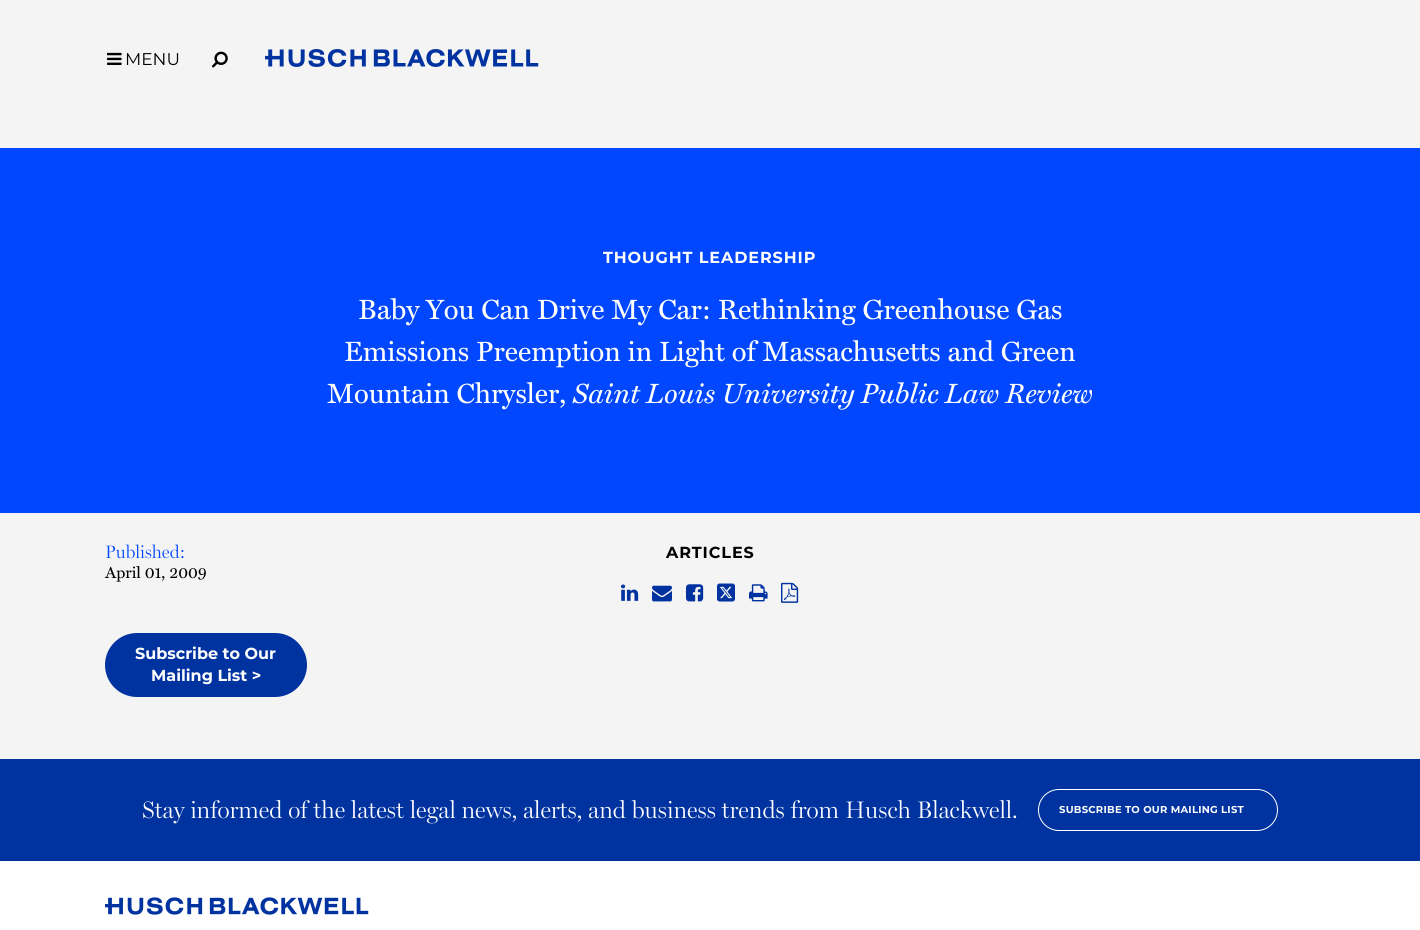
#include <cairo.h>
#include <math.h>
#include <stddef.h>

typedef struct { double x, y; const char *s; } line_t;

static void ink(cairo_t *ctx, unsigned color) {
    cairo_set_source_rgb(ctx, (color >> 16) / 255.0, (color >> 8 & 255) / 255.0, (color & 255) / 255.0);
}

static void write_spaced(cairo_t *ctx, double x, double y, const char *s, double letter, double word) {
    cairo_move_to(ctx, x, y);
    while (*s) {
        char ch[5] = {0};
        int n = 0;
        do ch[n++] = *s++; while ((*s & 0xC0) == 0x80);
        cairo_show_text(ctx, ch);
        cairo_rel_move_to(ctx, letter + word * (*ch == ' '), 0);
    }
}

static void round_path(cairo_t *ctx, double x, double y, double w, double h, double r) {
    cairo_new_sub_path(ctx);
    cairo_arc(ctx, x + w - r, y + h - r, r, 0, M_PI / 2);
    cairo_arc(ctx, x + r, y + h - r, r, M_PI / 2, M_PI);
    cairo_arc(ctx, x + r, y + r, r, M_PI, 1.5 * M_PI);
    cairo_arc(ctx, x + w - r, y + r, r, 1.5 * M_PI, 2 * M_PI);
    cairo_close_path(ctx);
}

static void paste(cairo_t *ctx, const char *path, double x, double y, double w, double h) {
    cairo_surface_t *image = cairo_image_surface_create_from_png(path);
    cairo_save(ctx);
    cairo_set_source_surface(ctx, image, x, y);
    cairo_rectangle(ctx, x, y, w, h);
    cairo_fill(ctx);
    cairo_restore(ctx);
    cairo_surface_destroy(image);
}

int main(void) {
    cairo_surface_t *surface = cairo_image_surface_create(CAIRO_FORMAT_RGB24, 1420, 930);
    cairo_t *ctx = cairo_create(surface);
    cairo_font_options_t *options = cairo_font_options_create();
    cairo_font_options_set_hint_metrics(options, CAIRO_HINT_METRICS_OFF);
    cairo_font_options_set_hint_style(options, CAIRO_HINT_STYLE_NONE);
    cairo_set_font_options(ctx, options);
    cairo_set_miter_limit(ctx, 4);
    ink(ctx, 0xF4F4F4);
    cairo_paint(ctx);
    paste(ctx, "media/1.png", 107, 52, 15, 13);
    cairo_select_font_face(ctx, "Montserrat", CAIRO_FONT_SLANT_NORMAL, CAIRO_FONT_WEIGHT_NORMAL);
    cairo_set_font_size(ctx, 17);
    ink(ctx, 0x000000);
    cairo_move_to(ctx, 125, 65);
    cairo_show_text(ctx, "MENU");
    paste(ctx, "media/2.png", 212, 51, 16, 17);
    paste(ctx, "media/3.png", 265, 49, 274, 18);
    ink(ctx, 0x0047FF);
    cairo_rectangle(ctx, 0, 148, 1420, 365);
    cairo_fill(ctx);
    cairo_select_font_face(ctx, "Montserrat", CAIRO_FONT_SLANT_NORMAL, CAIRO_FONT_WEIGHT_BOLD);
    cairo_set_font_size(ctx, 16);
    ink(ctx, 0xFFFFFF);
    write_spaced(ctx, 603, 263, "THOUGHT LEADERSHIP", 0.9, 0);
    cairo_select_font_face(ctx, "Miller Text", CAIRO_FONT_SLANT_NORMAL, CAIRO_FONT_WEIGHT_NORMAL);
    cairo_set_font_size(ctx, 28);
    {
        static const line_t items[] = {
            {358, 319, "Baby You Can Drive My Car: Rethinking Greenhouse Gas"},
            {344, 361, "Emissions Preemption in Light of Massachusetts and Green"},
            {327, 403, "Mountain Chrysler,"},
        };
        for (size_t i = 0; i < sizeof items / sizeof *items; i++) {
            cairo_move_to(ctx, items[i].x, items[i].y);
            cairo_show_text(ctx, items[i].s);
        }
    }
    cairo_select_font_face(ctx, "Miller Text", CAIRO_FONT_SLANT_ITALIC, CAIRO_FONT_WEIGHT_NORMAL);
    cairo_move_to(ctx, 573, 403);
    cairo_show_text(ctx, "Saint Louis University Public Law Review");
    cairo_select_font_face(ctx, "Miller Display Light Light", CAIRO_FONT_SLANT_NORMAL, CAIRO_FONT_WEIGHT_NORMAL);
    cairo_set_font_size(ctx, 18);
    ink(ctx, 0x0047FF);
    cairo_move_to(ctx, 105, 558);
    cairo_show_text(ctx, "Published:");
    cairo_select_font_face(ctx, "Miller Text", CAIRO_FONT_SLANT_NORMAL, CAIRO_FONT_WEIGHT_NORMAL);
    cairo_set_font_size(ctx, 16);
    ink(ctx, 0x000000);
    cairo_move_to(ctx, 105, 578);
    cairo_show_text(ctx, "April 01, 2009");
    ink(ctx, 0x0033A0);
    round_path(ctx, 105, 633, 202, 64, 32);
    cairo_fill(ctx);
    cairo_select_font_face(ctx, "Montserrat", CAIRO_FONT_SLANT_NORMAL, CAIRO_FONT_WEIGHT_BOLD);
    ink(ctx, 0xFFFFFF);
    cairo_move_to(ctx, 135, 659);
    cairo_show_text(ctx, "Subscribe to Our");
    cairo_move_to(ctx, 151, 681);
    cairo_show_text(ctx, "Mailing List >");
    ink(ctx, 0x000000);
    write_spaced(ctx, 666, 558, "ARTICLES", 0.9, 0);
    paste(ctx, "media/4.png", 621, 584, 18, 17);
    paste(ctx, "media/5.png", 652, 585, 20, 17);
    paste(ctx, "media/6.png", 686, 584, 18, 18);
    paste(ctx, "media/7.png", 717, 583, 18, 19);
    paste(ctx, "media/8.png", 749, 584, 19, 18);
    paste(ctx, "media/9.png", 781, 582, 18, 21);
    ink(ctx, 0xFFFFFF);
    cairo_rectangle(ctx, 0, 861, 1420, 69);
    cairo_fill(ctx);
    ink(ctx, 0x0033A0);
    cairo_rectangle(ctx, 0, 759, 1420, 102);
    cairo_fill(ctx);
    cairo_select_font_face(ctx, "Miller Display Light Light", CAIRO_FONT_SLANT_NORMAL, CAIRO_FONT_WEIGHT_NORMAL);
    cairo_set_font_size(ctx, 24);
    ink(ctx, 0xFFFFFF);
    cairo_move_to(ctx, 142, 818);
    cairo_show_text(ctx, "Stay informed of the latest legal news, alerts, and business trends from Husch Blackwell.");
    round_path(ctx, 1038.5, 789.5, 239, 41, 20.5);
    cairo_set_line_width(ctx, 1);
    cairo_stroke(ctx);
    cairo_select_font_face(ctx, "Montserrat", CAIRO_FONT_SLANT_NORMAL, CAIRO_FONT_WEIGHT_BOLD);
    cairo_set_font_size(ctx, 10);
    write_spaced(ctx, 1059, 813, "SUBSCRIBE TO OUR MAILING LIST", 0.25, 0);
    paste(ctx, "media/10.png", 105, 897, 264, 18);
    cairo_surface_write_to_png(surface, "image.png");
    cairo_font_options_destroy(options);
    cairo_destroy(ctx);
    cairo_surface_destroy(surface);
    return 0;
}
